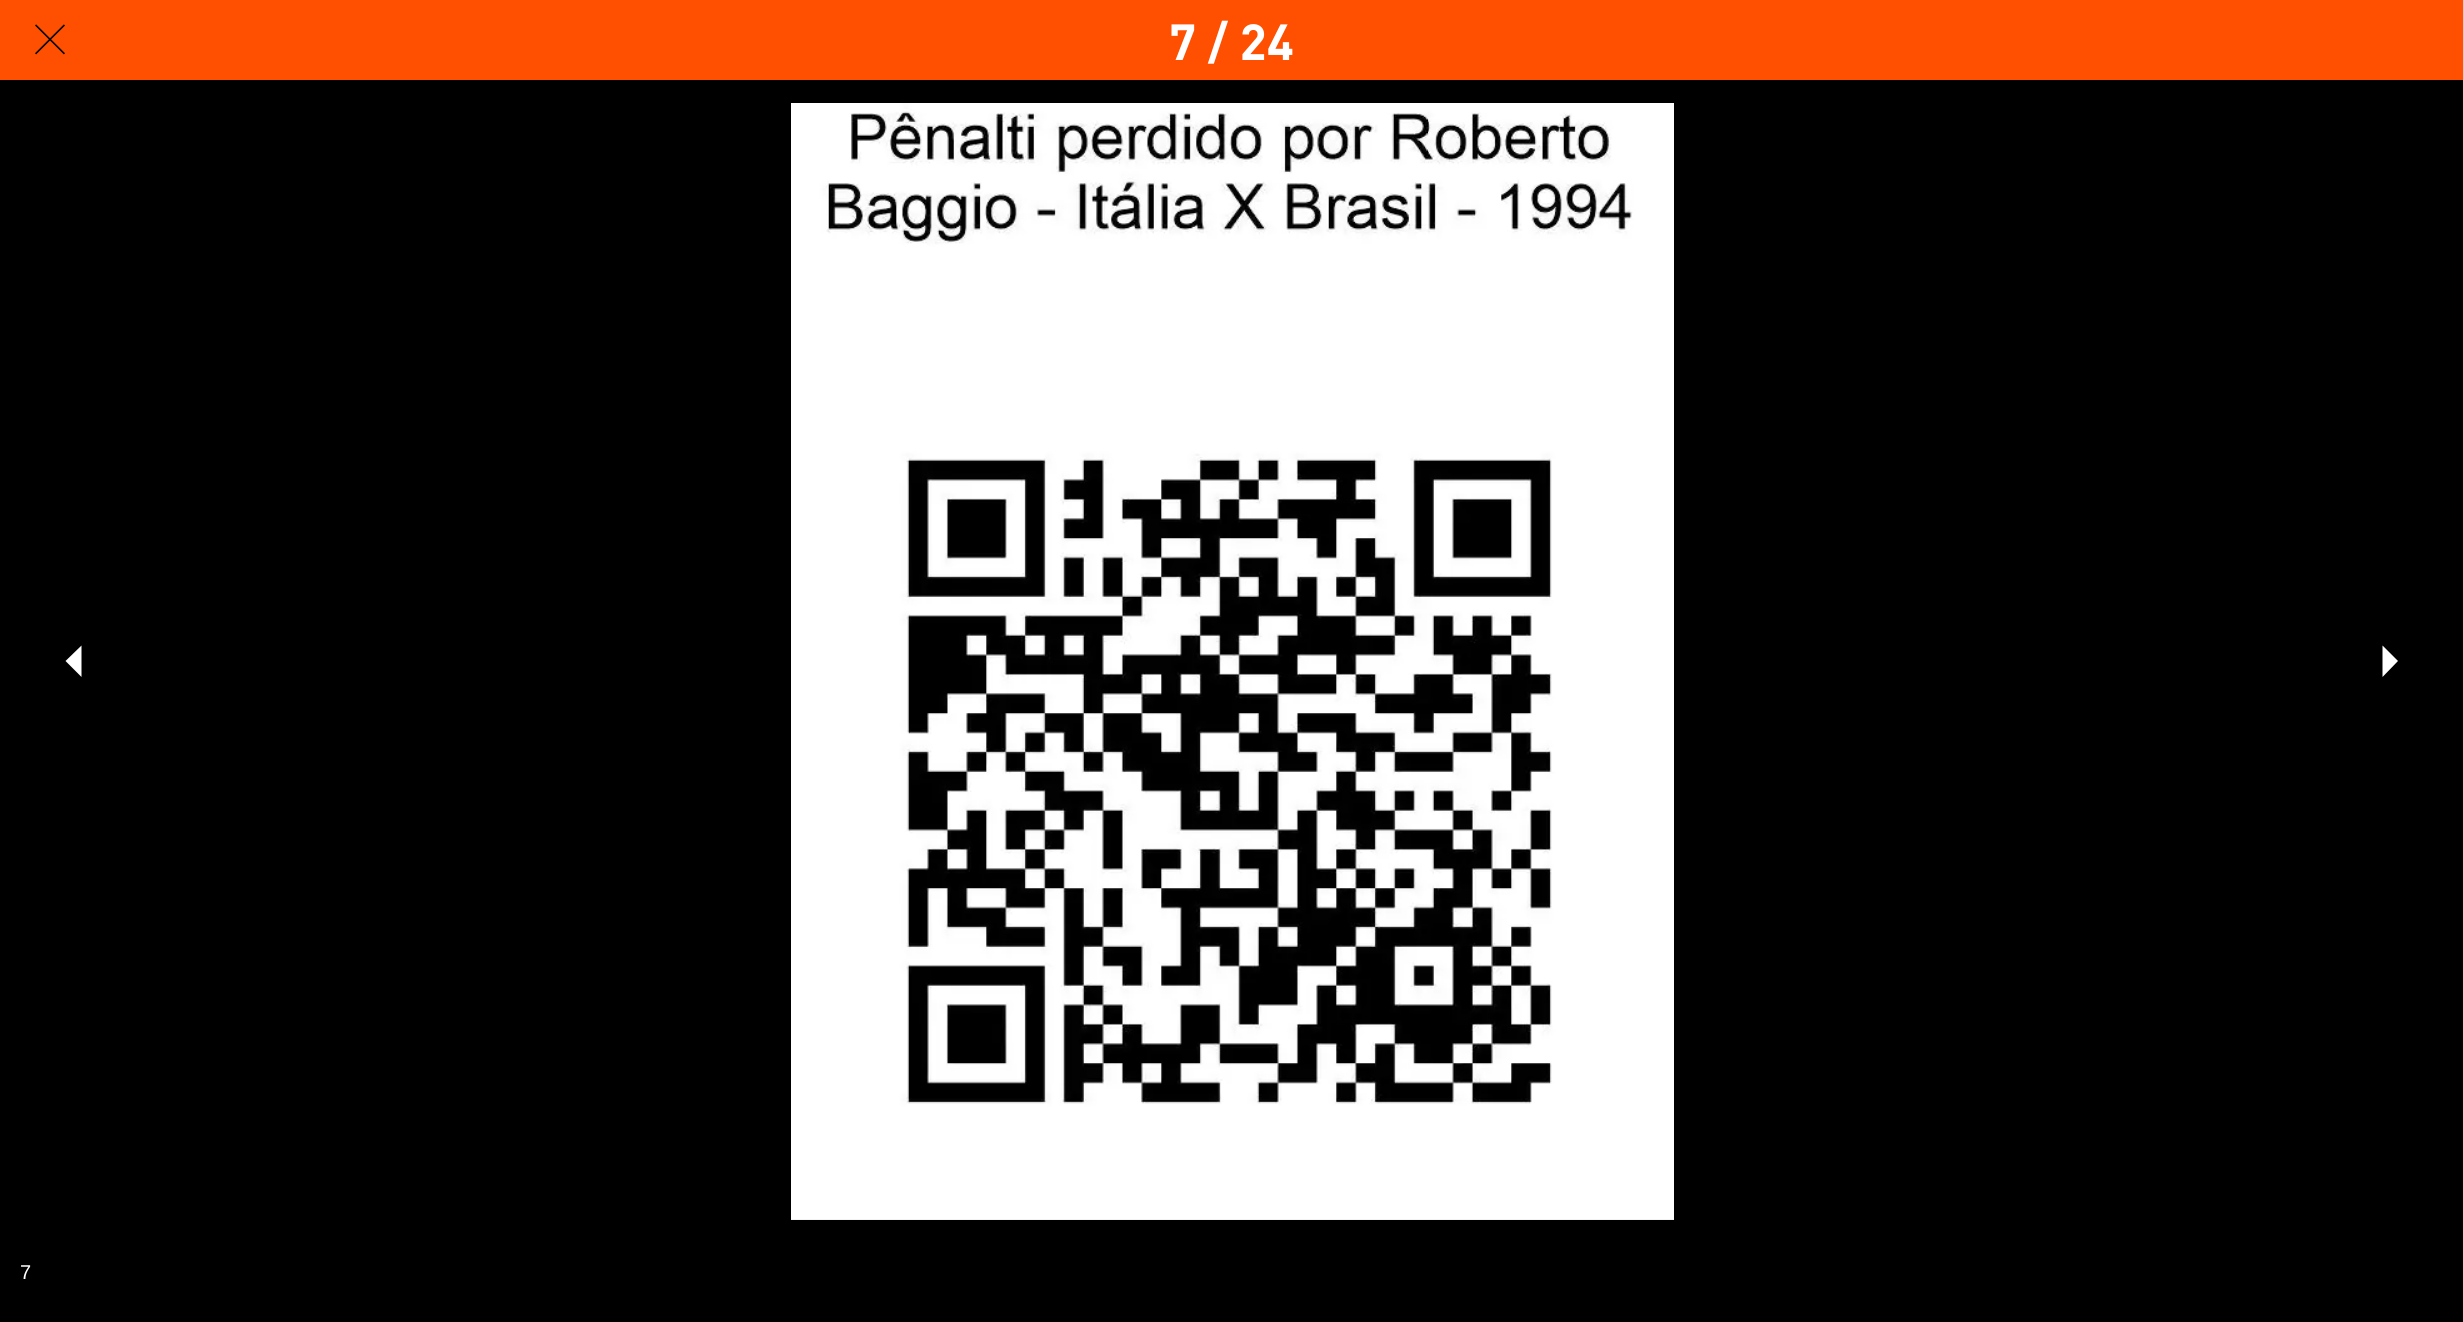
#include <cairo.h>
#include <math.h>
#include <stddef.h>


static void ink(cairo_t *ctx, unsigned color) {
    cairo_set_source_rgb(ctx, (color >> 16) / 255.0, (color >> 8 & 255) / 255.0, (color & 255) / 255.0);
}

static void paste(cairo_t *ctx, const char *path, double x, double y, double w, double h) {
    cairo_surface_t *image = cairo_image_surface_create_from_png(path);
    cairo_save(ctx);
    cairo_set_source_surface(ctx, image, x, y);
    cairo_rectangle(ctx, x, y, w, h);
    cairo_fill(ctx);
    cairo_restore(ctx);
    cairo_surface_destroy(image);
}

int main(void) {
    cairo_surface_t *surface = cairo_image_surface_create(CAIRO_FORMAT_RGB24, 2463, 1322);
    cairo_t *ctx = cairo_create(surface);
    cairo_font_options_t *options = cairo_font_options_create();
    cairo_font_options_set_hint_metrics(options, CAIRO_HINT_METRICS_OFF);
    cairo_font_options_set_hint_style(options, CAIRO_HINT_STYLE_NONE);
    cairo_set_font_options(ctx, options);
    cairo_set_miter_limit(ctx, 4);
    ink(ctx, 0x000000);
    cairo_paint(ctx);
    ink(ctx, 0xFE5000);
    cairo_rectangle(ctx, 0, 0, 2463, 80);
    cairo_fill(ctx);
    paste(ctx, "media/1.png", 35, 24, 30, 31);
    cairo_select_font_face(ctx, "DIN", CAIRO_FONT_SLANT_NORMAL, CAIRO_FONT_WEIGHT_BOLD);
    cairo_set_font_size(ctx, 50);
    ink(ctx, 0xFFFFFF);
    cairo_move_to(ctx, 1169, 60);
    cairo_show_text(ctx, "7 / 24");
    paste(ctx, "media/2.png", 791, 103, 883, 1116);
    ink(ctx, 0xF3F3F3);
    cairo_rectangle(ctx, 791, 1219, 883, 1);
    cairo_fill(ctx);
    ink(ctx, 0xFFFFFF);
    cairo_new_path(ctx);
    cairo_move_to(ctx, 81.5, 645.5);
    cairo_line_to(ctx, 65.5, 661);
    cairo_line_to(ctx, 81.5, 677);
    cairo_close_path(ctx);
    cairo_fill(ctx);
    cairo_new_path(ctx);
    cairo_move_to(ctx, 2382.5, 677);
    cairo_line_to(ctx, 2398, 661);
    cairo_line_to(ctx, 2382.5, 645.5);
    cairo_close_path(ctx);
    cairo_fill(ctx);
    cairo_select_font_face(ctx, "Liberation Sans", CAIRO_FONT_SLANT_NORMAL, CAIRO_FONT_WEIGHT_NORMAL);
    cairo_set_font_size(ctx, 20);
    cairo_move_to(ctx, 20, 1279);
    cairo_show_text(ctx, "7");
    cairo_surface_write_to_png(surface, "image.png");
    cairo_font_options_destroy(options);
    cairo_destroy(ctx);
    cairo_surface_destroy(surface);
    return 0;
}
